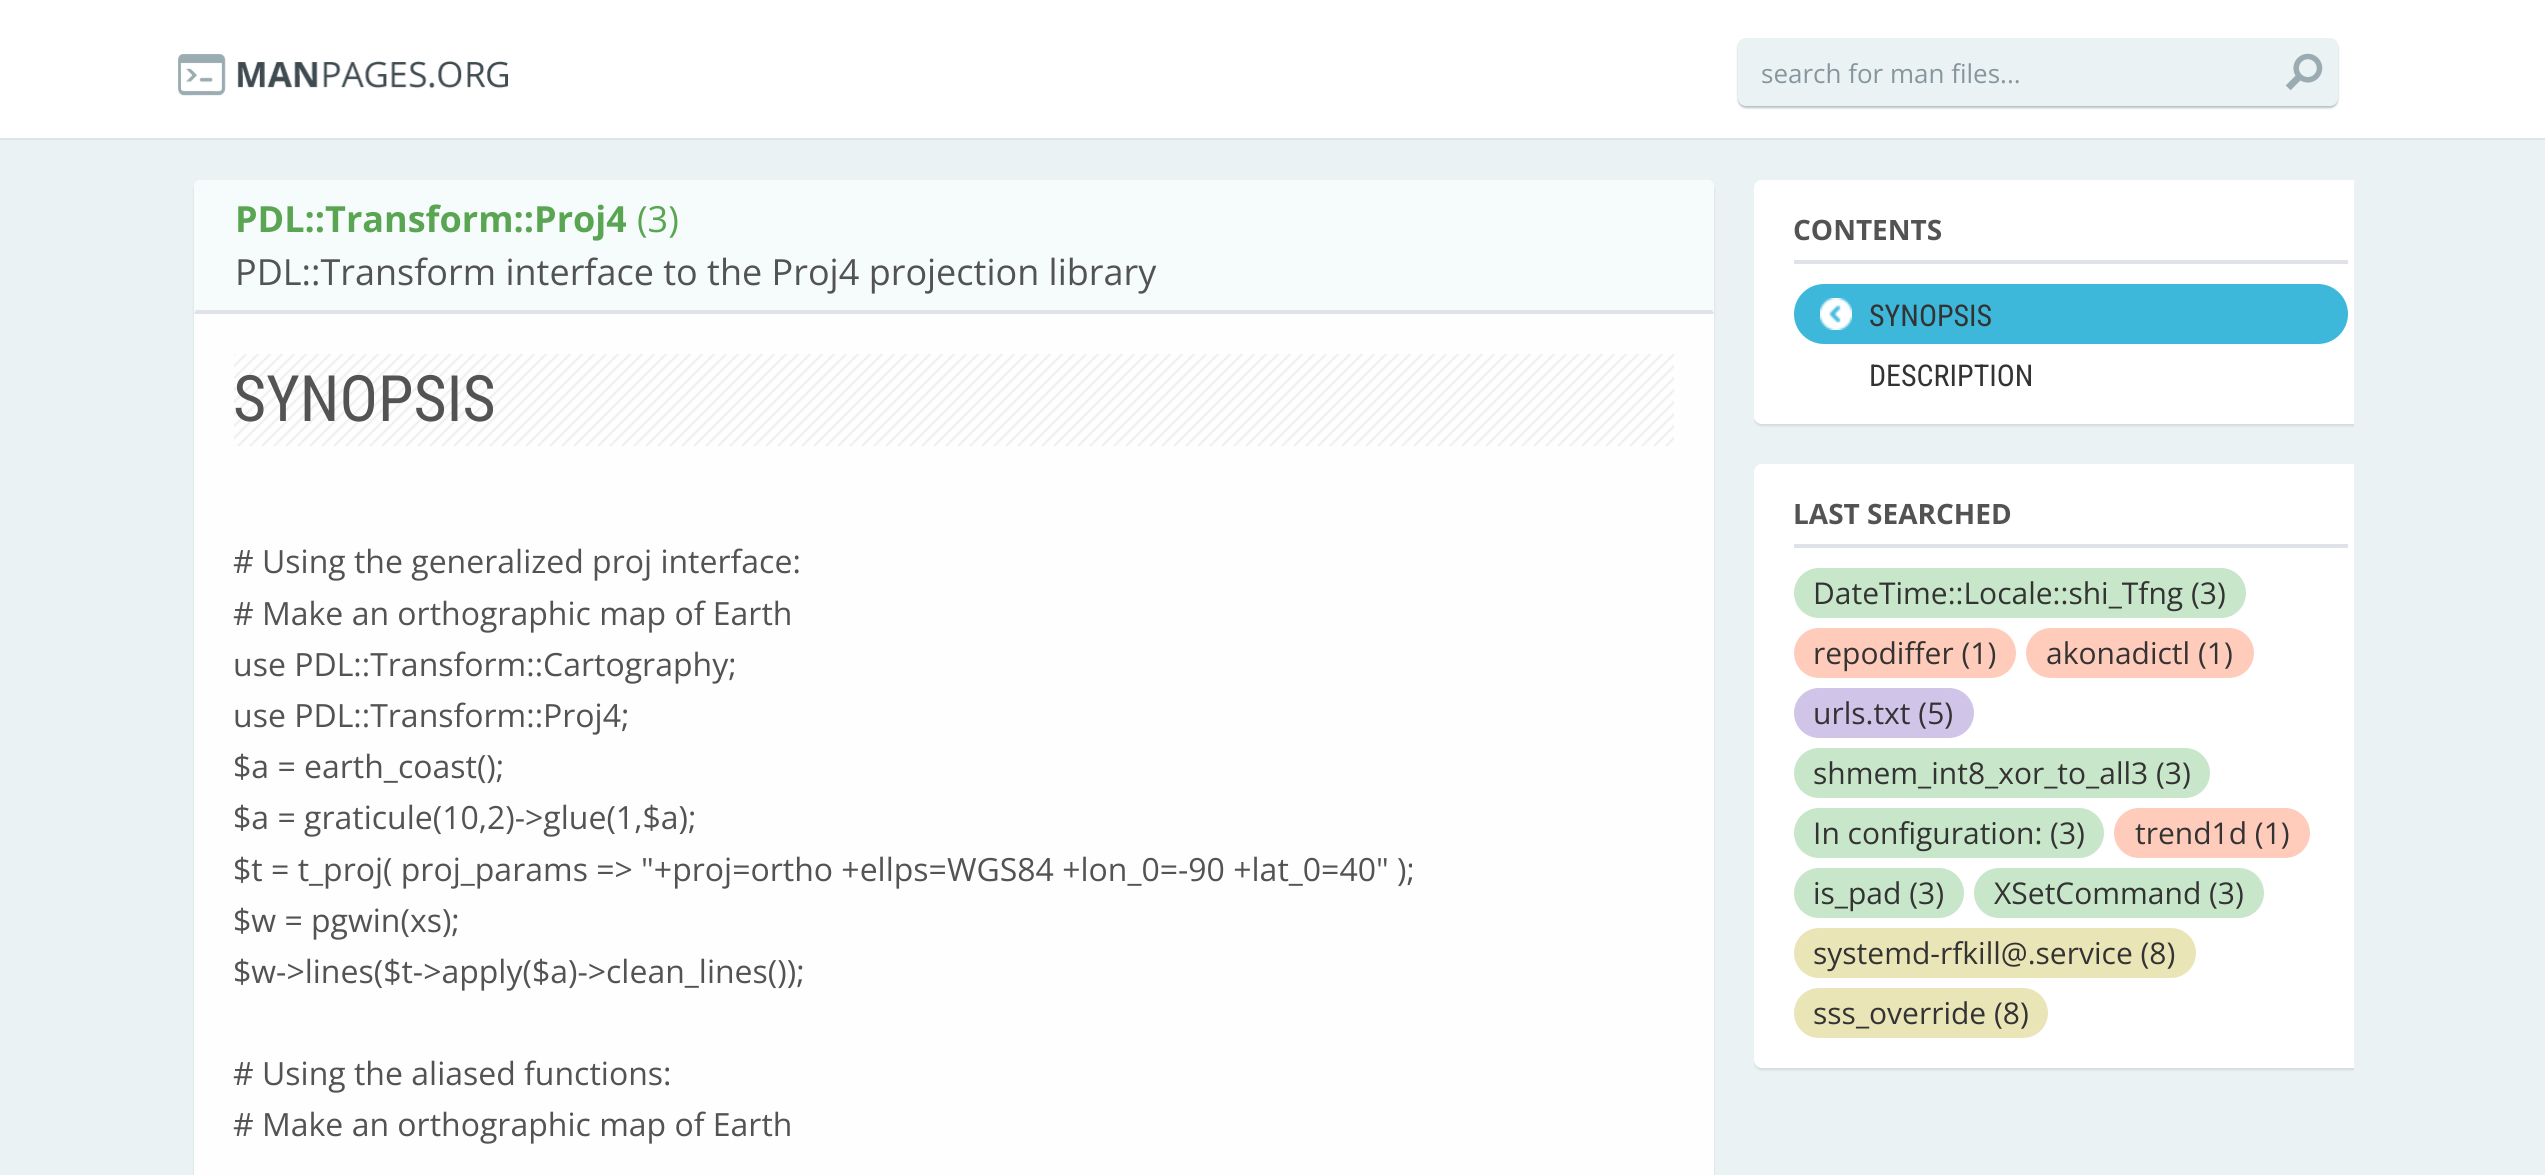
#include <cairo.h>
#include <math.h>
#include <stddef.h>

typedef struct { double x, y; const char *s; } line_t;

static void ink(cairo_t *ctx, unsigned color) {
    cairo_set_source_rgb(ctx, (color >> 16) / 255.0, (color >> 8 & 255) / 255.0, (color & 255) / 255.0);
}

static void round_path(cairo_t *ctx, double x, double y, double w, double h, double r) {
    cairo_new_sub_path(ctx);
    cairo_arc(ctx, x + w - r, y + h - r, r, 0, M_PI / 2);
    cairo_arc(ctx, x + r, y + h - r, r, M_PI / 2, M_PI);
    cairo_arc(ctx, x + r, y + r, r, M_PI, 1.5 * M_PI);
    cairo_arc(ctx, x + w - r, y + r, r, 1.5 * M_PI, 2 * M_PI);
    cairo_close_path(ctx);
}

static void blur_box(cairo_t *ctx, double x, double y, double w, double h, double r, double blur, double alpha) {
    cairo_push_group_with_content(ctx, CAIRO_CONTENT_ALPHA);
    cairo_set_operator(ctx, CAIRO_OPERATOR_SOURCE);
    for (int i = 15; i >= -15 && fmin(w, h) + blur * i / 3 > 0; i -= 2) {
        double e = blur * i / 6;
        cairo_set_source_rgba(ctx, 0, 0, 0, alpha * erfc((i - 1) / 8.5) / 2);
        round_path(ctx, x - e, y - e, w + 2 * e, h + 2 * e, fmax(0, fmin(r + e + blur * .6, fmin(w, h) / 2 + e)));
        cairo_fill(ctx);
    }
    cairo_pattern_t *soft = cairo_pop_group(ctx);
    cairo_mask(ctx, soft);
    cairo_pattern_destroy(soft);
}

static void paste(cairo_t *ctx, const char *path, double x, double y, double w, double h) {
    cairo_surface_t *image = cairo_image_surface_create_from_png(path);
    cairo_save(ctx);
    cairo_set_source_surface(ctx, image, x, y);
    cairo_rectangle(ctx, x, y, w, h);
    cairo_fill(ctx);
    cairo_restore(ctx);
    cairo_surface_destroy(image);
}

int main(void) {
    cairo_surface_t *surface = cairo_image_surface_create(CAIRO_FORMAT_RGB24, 2545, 1175);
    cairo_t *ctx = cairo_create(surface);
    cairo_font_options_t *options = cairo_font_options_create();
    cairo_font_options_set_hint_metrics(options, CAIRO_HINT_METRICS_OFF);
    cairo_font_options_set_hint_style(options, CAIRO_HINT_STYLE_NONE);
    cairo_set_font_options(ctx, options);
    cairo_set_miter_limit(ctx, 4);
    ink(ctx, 0xEAF2F4);
    cairo_paint(ctx);
    ink(ctx, 0xFFFFFF);
    cairo_rectangle(ctx, 0, 0, 2545, 138);
    cairo_fill(ctx);
    ink(ctx, 0xDCE5E7);
    cairo_rectangle(ctx, 0, 138, 2545, 2);
    cairo_fill(ctx);
    paste(ctx, "media/1.png", 178, 54, 330, 42);
    ink(ctx, 0x062F37);
    blur_box(ctx, 1738, 40, 600, 68, 8, 1, 0.3);
    ink(ctx, 0xEAF2F4);
    round_path(ctx, 1738, 38, 600, 68, 8);
    cairo_fill(ctx);
    cairo_select_font_face(ctx, "Open Sans", CAIRO_FONT_SLANT_NORMAL, CAIRO_FONT_WEIGHT_NORMAL);
    cairo_set_font_size(ctx, 26);
    ink(ctx, 0x86969D);
    cairo_move_to(ctx, 1761, 83);
    cairo_show_text(ctx, "search for man files...");
    paste(ctx, "media/2.png", 2285, 53, 38, 38);
    ink(ctx, 0x000000);
    blur_box(ctx, 194, 182, 1520, 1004, 8, 1, 0.1);
    ink(ctx, 0xFEFEFE);
    cairo_new_path(ctx);
    cairo_move_to(ctx, 202, 180);
    cairo_line_to(ctx, 1706, 180);
    cairo_curve_to(ctx, 1710.5, 180, 1714, 183.5, 1714, 188);
    cairo_line_to(ctx, 1714, 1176);
    cairo_line_to(ctx, 194, 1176);
    cairo_line_to(ctx, 194, 188);
    cairo_curve_to(ctx, 194, 183.5, 197.5, 180, 202, 180);
    cairo_close_path(ctx);
    cairo_fill(ctx);
    ink(ctx, 0xF6FBFC);
    cairo_new_path(ctx);
    cairo_move_to(ctx, 200, 180);
    cairo_line_to(ctx, 1708, 180);
    cairo_curve_to(ctx, 1711.5, 180, 1714, 182.5, 1714, 186);
    cairo_line_to(ctx, 1714, 314);
    cairo_line_to(ctx, 194, 314);
    cairo_line_to(ctx, 194, 186);
    cairo_curve_to(ctx, 194, 182.5, 196.5, 180, 200, 180);
    cairo_close_path(ctx);
    cairo_fill(ctx);
    ink(ctx, 0xDFE3E9);
    cairo_new_path(ctx);
    cairo_move_to(ctx, 1714, 314);
    cairo_line_to(ctx, 1712, 310);
    cairo_line_to(ctx, 196, 310);
    cairo_line_to(ctx, 194, 314);
    cairo_close_path(ctx);
    cairo_fill(ctx);
    cairo_select_font_face(ctx, "Open Sans", CAIRO_FONT_SLANT_NORMAL, CAIRO_FONT_WEIGHT_BOLD);
    cairo_set_font_size(ctx, 36);
    ink(ctx, 0x59A552);
    cairo_move_to(ctx, 235, 232);
    cairo_show_text(ctx, "PDL::Transform::Proj4");
    cairo_select_font_face(ctx, "Open Sans", CAIRO_FONT_SLANT_NORMAL, CAIRO_FONT_WEIGHT_NORMAL);
    cairo_move_to(ctx, 637, 232);
    cairo_show_text(ctx, "(3)");
    ink(ctx, 0x535353);
    cairo_move_to(ctx, 235, 285);
    cairo_show_text(ctx, "PDL::Transform interface to the Proj4 projection library");
    paste(ctx, "media/3.png", 234, 354, 1440, 92);
    cairo_select_font_face(ctx, "Roboto Condensed", CAIRO_FONT_SLANT_NORMAL, CAIRO_FONT_WEIGHT_NORMAL);
    cairo_set_font_size(ctx, 64);
    cairo_move_to(ctx, 233, 421);
    cairo_show_text(ctx, "SYNOPSIS");
    cairo_select_font_face(ctx, "Open Sans", CAIRO_FONT_SLANT_NORMAL, CAIRO_FONT_WEIGHT_NORMAL);
    cairo_set_font_size(ctx, 32);
    {
        static const line_t items[] = {
            {233, 573, "# Using the generalized proj interface:"},
            {233, 625, "# Make an orthographic map of Earth"},
            {233, 676, "use PDL::Transform::Cartography;"},
            {233, 727, "use PDL::Transform::Proj4;"},
            {233, 778, "$a = earth_coast();"},
            {233, 829, "$a = graticule(10,2)->glue(1,$a);"},
            {233, 881, "$t = t_proj( proj_params => \"+proj=ortho +ellps=WGS84 +lon_0=-90 +lat_0=40\" );"},
            {233, 932, "$w = pgwin(xs);"},
            {233, 983, "$w->lines($t->apply($a)->clean_lines());"},
            {233, 1085, "# Using the aliased functions:"},
            {233, 1136, "# Make an orthographic map of Earth"},
        };
        for (size_t i = 0; i < sizeof items / sizeof *items; i++) {
            cairo_move_to(ctx, items[i].x, items[i].y);
            cairo_show_text(ctx, items[i].s);
        }
    }
    cairo_save(ctx);
    cairo_rectangle(ctx, 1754, 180, 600, 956);
    cairo_clip(ctx);
    ink(ctx, 0x000000);
    blur_box(ctx, 1754, 182, 634, 244, 8, 1, 0.1);
    cairo_restore(ctx);
    ink(ctx, 0xFFFFFF);
    cairo_new_path(ctx);
    cairo_move_to(ctx, 1762, 180);
    cairo_line_to(ctx, 2354, 180);
    cairo_line_to(ctx, 2354, 424);
    cairo_line_to(ctx, 1762, 424);
    cairo_curve_to(ctx, 1757.5, 424, 1754, 420.5, 1754, 416);
    cairo_line_to(ctx, 1754, 188);
    cairo_curve_to(ctx, 1754, 183.5, 1757.5, 180, 1762, 180);
    cairo_close_path(ctx);
    cairo_fill(ctx);
    ink(ctx, 0xDFE3E9);
    cairo_rectangle(ctx, 1794, 260, 554, 4);
    cairo_fill(ctx);
    cairo_select_font_face(ctx, "Open Sans", CAIRO_FONT_SLANT_NORMAL, CAIRO_FONT_WEIGHT_BOLD);
    cairo_set_font_size(ctx, 28);
    ink(ctx, 0x535353);
    cairo_move_to(ctx, 1793, 240);
    cairo_show_text(ctx, "CONTENTS");
    ink(ctx, 0x3DB8DB);
    round_path(ctx, 1794, 284, 554, 60, 30);
    cairo_fill(ctx);
    paste(ctx, "media/4.png", 1820, 298, 32, 32);
    cairo_select_font_face(ctx, "Roboto Condensed", CAIRO_FONT_SLANT_NORMAL, CAIRO_FONT_WEIGHT_NORMAL);
    cairo_set_font_size(ctx, 30);
    ink(ctx, 0x333333);
    cairo_move_to(ctx, 1869, 326);
    cairo_show_text(ctx, "SYNOPSIS");
    cairo_move_to(ctx, 1869, 386);
    cairo_show_text(ctx, "DESCRIPTION");
    cairo_save(ctx);
    cairo_rectangle(ctx, 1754, 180, 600, 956);
    cairo_clip(ctx);
    ink(ctx, 0x000000);
    blur_box(ctx, 1754, 466, 634, 604, 8, 1, 0.1);
    cairo_restore(ctx);
    ink(ctx, 0xFFFFFF);
    cairo_new_path(ctx);
    cairo_move_to(ctx, 1762, 464);
    cairo_line_to(ctx, 2354, 464);
    cairo_line_to(ctx, 2354, 1068);
    cairo_line_to(ctx, 1762, 1068);
    cairo_curve_to(ctx, 1757.5, 1068, 1754, 1064.5, 1754, 1060);
    cairo_line_to(ctx, 1754, 472);
    cairo_curve_to(ctx, 1754, 467.5, 1757.5, 464, 1762, 464);
    cairo_close_path(ctx);
    cairo_fill(ctx);
    ink(ctx, 0xDFE3E9);
    cairo_rectangle(ctx, 1794, 544, 554, 4);
    cairo_fill(ctx);
    cairo_select_font_face(ctx, "Open Sans", CAIRO_FONT_SLANT_NORMAL, CAIRO_FONT_WEIGHT_BOLD);
    cairo_set_font_size(ctx, 28);
    ink(ctx, 0x535353);
    cairo_move_to(ctx, 1793, 524);
    cairo_show_text(ctx, "LAST SEARCHED");
    ink(ctx, 0xC8E6C9);
    round_path(ctx, 1794, 568, 452, 50, 25);
    cairo_fill(ctx);
    cairo_select_font_face(ctx, "Open Sans", CAIRO_FONT_SLANT_NORMAL, CAIRO_FONT_WEIGHT_NORMAL);
    cairo_set_font_size(ctx, 30);
    ink(ctx, 0x333333);
    cairo_move_to(ctx, 1813, 604);
    cairo_show_text(ctx, "DateTime::Locale::shi_Tfng (3)");
    ink(ctx, 0xFFCCBC);
    round_path(ctx, 1794, 628, 222, 50, 25);
    cairo_fill(ctx);
    ink(ctx, 0x333333);
    cairo_move_to(ctx, 1813, 664);
    cairo_show_text(ctx, "repodiffer (1)");
    ink(ctx, 0xFFCCBC);
    round_path(ctx, 2026, 628, 228, 50, 25);
    cairo_fill(ctx);
    ink(ctx, 0x333333);
    cairo_move_to(ctx, 2046, 664);
    cairo_show_text(ctx, "akonadictl (1)");
    ink(ctx, 0xD1C4E9);
    round_path(ctx, 1794, 688, 180, 50, 25);
    cairo_fill(ctx);
    ink(ctx, 0x333333);
    cairo_move_to(ctx, 1813, 724);
    cairo_show_text(ctx, "urls.txt (5)");
    ink(ctx, 0xC8E6C9);
    round_path(ctx, 1794, 748, 416, 50, 25);
    cairo_fill(ctx);
    ink(ctx, 0x333333);
    cairo_move_to(ctx, 1813, 784);
    cairo_show_text(ctx, "shmem_int8_xor_to_all3 (3)");
    ink(ctx, 0xC8E6C9);
    round_path(ctx, 1794, 808, 310, 50, 25);
    cairo_fill(ctx);
    ink(ctx, 0x333333);
    cairo_move_to(ctx, 1813, 844);
    cairo_show_text(ctx, "In configuration: (3)");
    ink(ctx, 0xFFCCBC);
    round_path(ctx, 2114, 808, 196, 50, 25);
    cairo_fill(ctx);
    ink(ctx, 0x333333);
    cairo_move_to(ctx, 2135, 844);
    cairo_show_text(ctx, "trend1d (1)");
    ink(ctx, 0xC8E6C9);
    round_path(ctx, 1794, 868, 170, 50, 25);
    cairo_fill(ctx);
    ink(ctx, 0x333333);
    cairo_move_to(ctx, 1813, 904);
    cairo_show_text(ctx, "is_pad (3)");
    ink(ctx, 0xC8E6C9);
    round_path(ctx, 1974, 868, 290, 50, 25);
    cairo_fill(ctx);
    ink(ctx, 0x333333);
    cairo_move_to(ctx, 1994, 904);
    cairo_show_text(ctx, "XSetCommand (3)");
    ink(ctx, 0xEAE5B7);
    round_path(ctx, 1794, 928, 402, 50, 25);
    cairo_fill(ctx);
    ink(ctx, 0x333333);
    cairo_move_to(ctx, 1813, 964);
    cairo_show_text(ctx, "systemd-rfkill@.service (8)");
    ink(ctx, 0xEAE5B7);
    round_path(ctx, 1794, 988, 254, 50, 25);
    cairo_fill(ctx);
    ink(ctx, 0x333333);
    cairo_move_to(ctx, 1813, 1024);
    cairo_show_text(ctx, "sss_override (8)");
    cairo_surface_write_to_png(surface, "image.png");
    cairo_font_options_destroy(options);
    cairo_destroy(ctx);
    cairo_surface_destroy(surface);
    return 0;
}
